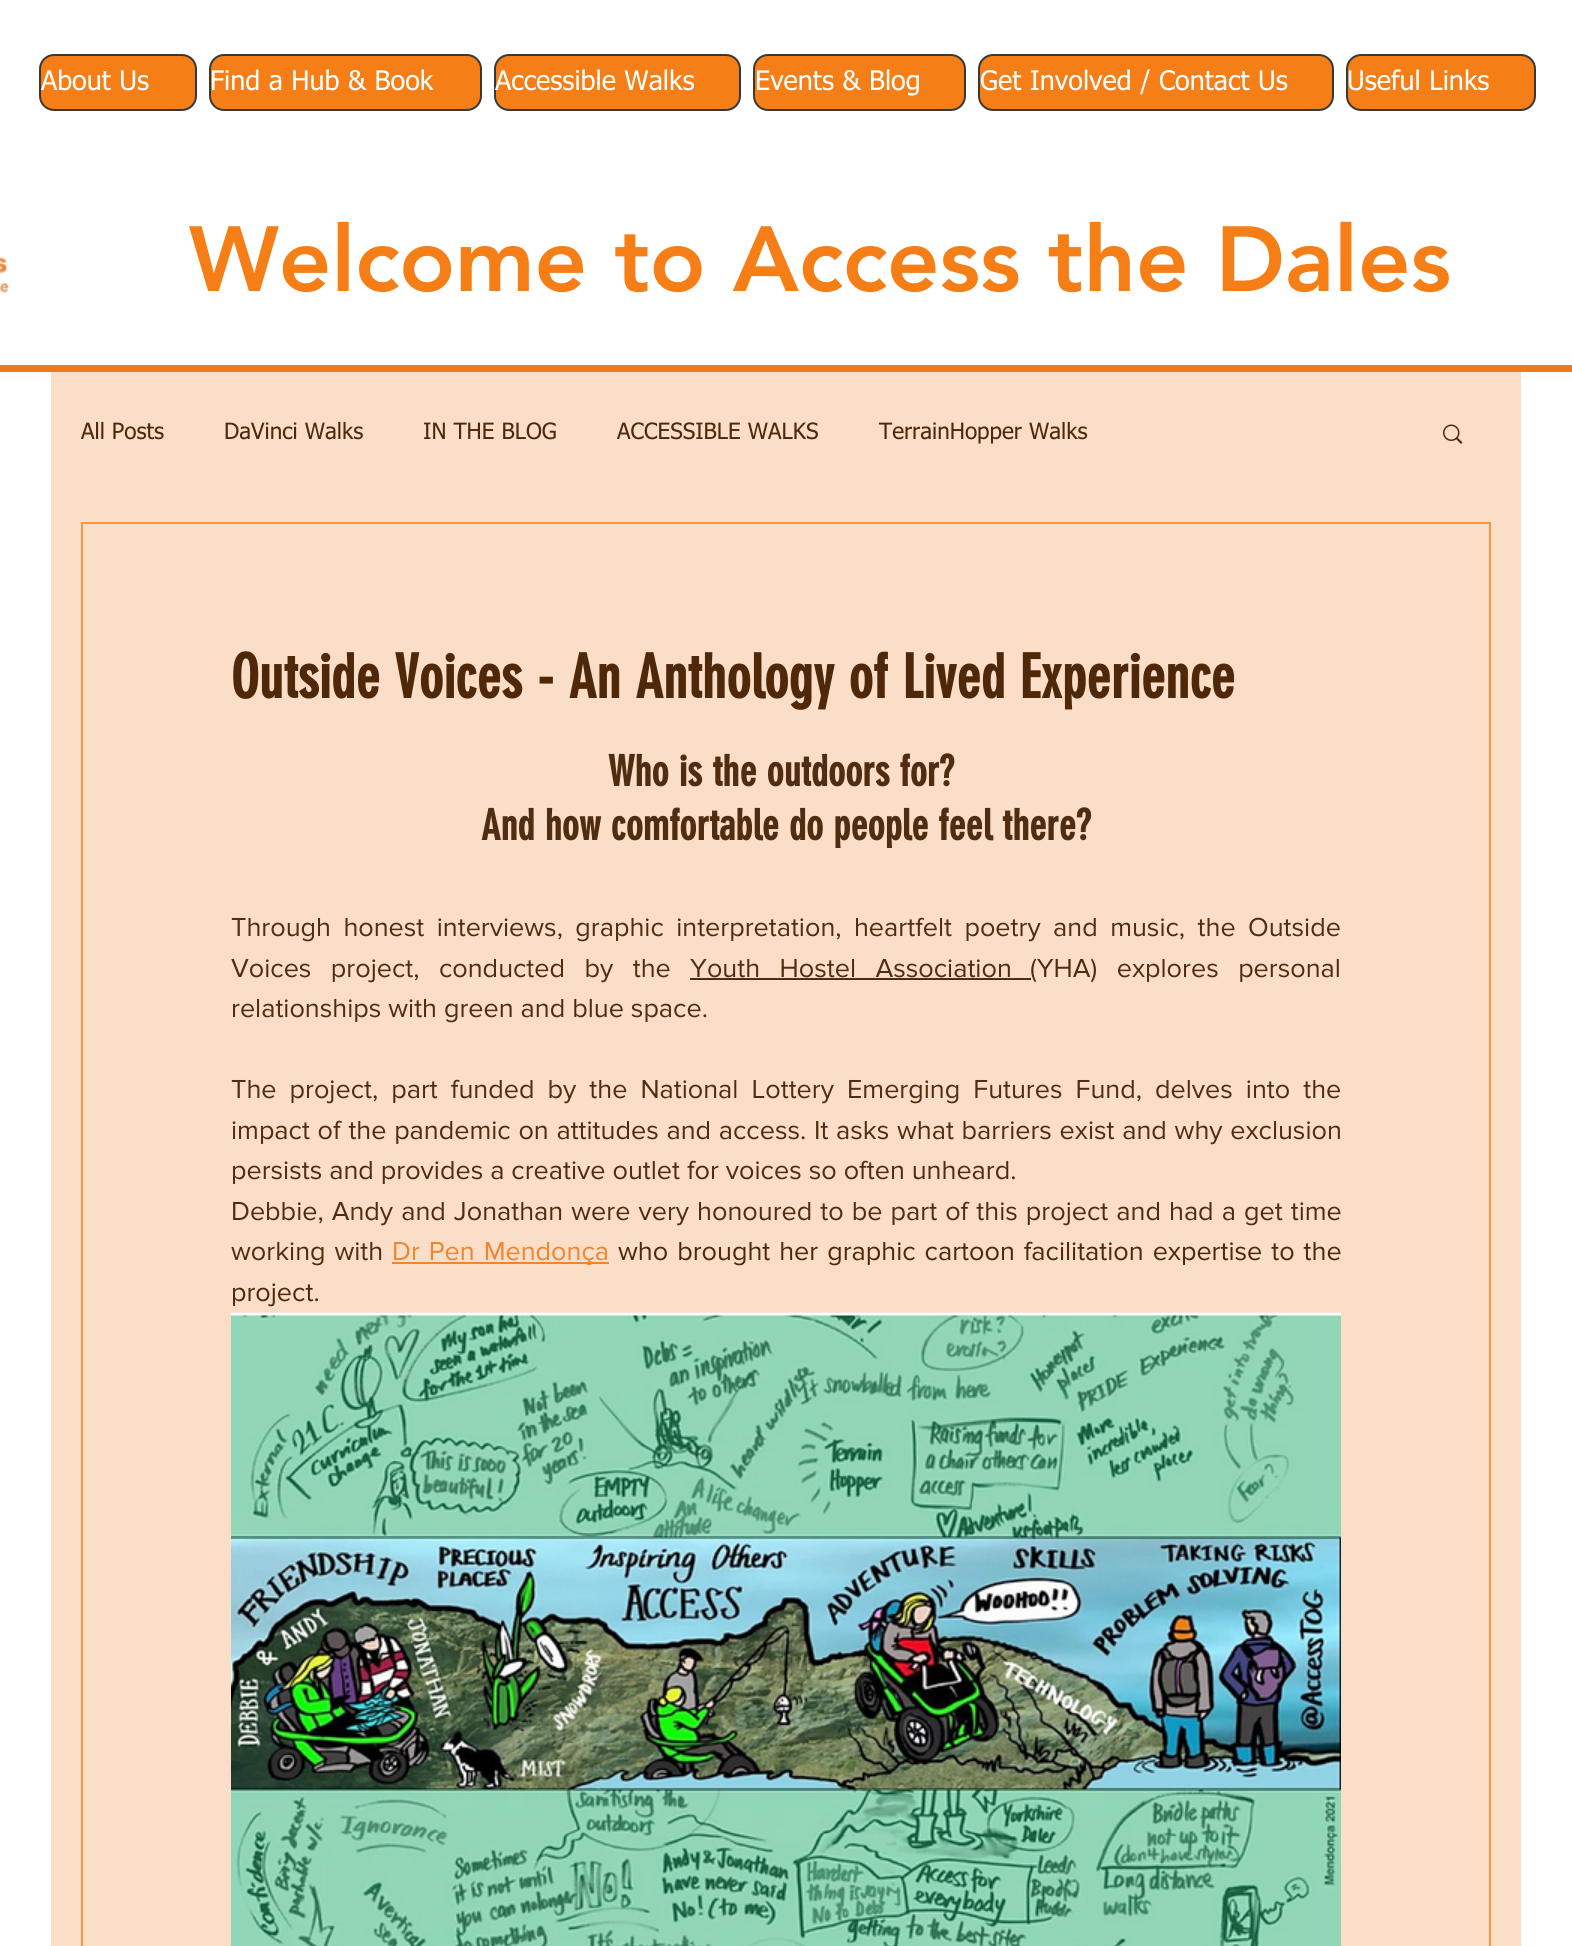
#include <cairo.h>
#include <math.h>
#include <stddef.h>

typedef struct { double x, y; const char *s; } line_t;

static void ink(cairo_t *ctx, unsigned color) {
    cairo_set_source_rgb(ctx, (color >> 16) / 255.0, (color >> 8 & 255) / 255.0, (color & 255) / 255.0);
}

static void write_spaced(cairo_t *ctx, double x, double y, const char *s, double letter, double word) {
    cairo_move_to(ctx, x, y);
    while (*s) {
        char ch[5] = {0};
        int n = 0;
        do ch[n++] = *s++; while ((*s & 0xC0) == 0x80);
        cairo_show_text(ctx, ch);
        cairo_rel_move_to(ctx, letter + word * (*ch == ' '), 0);
    }
}

static void round_path(cairo_t *ctx, double x, double y, double w, double h, double r) {
    cairo_new_sub_path(ctx);
    cairo_arc(ctx, x + w - r, y + h - r, r, 0, M_PI / 2);
    cairo_arc(ctx, x + r, y + h - r, r, M_PI / 2, M_PI);
    cairo_arc(ctx, x + r, y + r, r, M_PI, 1.5 * M_PI);
    cairo_arc(ctx, x + w - r, y + r, r, 1.5 * M_PI, 2 * M_PI);
    cairo_close_path(ctx);
}

static void paste(cairo_t *ctx, const char *path, double x, double y, double w, double h) {
    cairo_surface_t *image = cairo_image_surface_create_from_png(path);
    cairo_save(ctx);
    cairo_set_source_surface(ctx, image, x, y);
    cairo_rectangle(ctx, x, y, w, h);
    cairo_fill(ctx);
    cairo_restore(ctx);
    cairo_surface_destroy(image);
}

int main(void) {
    cairo_surface_t *surface = cairo_image_surface_create(CAIRO_FORMAT_RGB24, 1572, 1946);
    cairo_t *ctx = cairo_create(surface);
    cairo_font_options_t *options = cairo_font_options_create();
    cairo_font_options_set_hint_metrics(options, CAIRO_HINT_METRICS_OFF);
    cairo_font_options_set_hint_style(options, CAIRO_HINT_STYLE_NONE);
    cairo_set_font_options(ctx, options);
    cairo_set_miter_limit(ctx, 4);
    ink(ctx, 0xFFFFFF);
    cairo_paint(ctx);
    ink(ctx, 0xF57E16);
    round_path(ctx, 40, 55, 156, 55, 14);
    cairo_fill_preserve(ctx);
    ink(ctx, 0x383838);
    cairo_stroke(ctx);
    cairo_select_font_face(ctx, "tahoma", CAIRO_FONT_SLANT_NORMAL, CAIRO_FONT_WEIGHT_NORMAL);
    cairo_set_font_size(ctx, 27);
    ink(ctx, 0xFFFFFF);
    cairo_move_to(ctx, 41, 90);
    cairo_show_text(ctx, "About Us");
    ink(ctx, 0xF57E16);
    round_path(ctx, 210, 55, 271, 55, 14);
    cairo_fill_preserve(ctx);
    ink(ctx, 0x383838);
    cairo_stroke(ctx);
    ink(ctx, 0xFFFFFF);
    cairo_move_to(ctx, 210, 90);
    cairo_show_text(ctx, "Find a Hub & Book");
    ink(ctx, 0xF57E16);
    round_path(ctx, 495, 55, 245, 55, 14);
    cairo_fill_preserve(ctx);
    ink(ctx, 0x383838);
    cairo_stroke(ctx);
    ink(ctx, 0xFFFFFF);
    cairo_move_to(ctx, 495, 90);
    cairo_show_text(ctx, "Accessible Walks");
    ink(ctx, 0xF57E16);
    round_path(ctx, 754, 55, 211, 55, 14);
    cairo_fill_preserve(ctx);
    ink(ctx, 0x383838);
    cairo_stroke(ctx);
    ink(ctx, 0xFFFFFF);
    cairo_move_to(ctx, 755, 90);
    cairo_show_text(ctx, "Events & Blog");
    ink(ctx, 0xF57E16);
    round_path(ctx, 979, 55, 354, 55, 14);
    cairo_fill_preserve(ctx);
    ink(ctx, 0x383838);
    cairo_stroke(ctx);
    ink(ctx, 0xFFFFFF);
    cairo_move_to(ctx, 980, 90);
    cairo_show_text(ctx, "Get Involved / Contact Us");
    ink(ctx, 0xF57E16);
    round_path(ctx, 1347, 55, 188, 55, 14);
    cairo_fill_preserve(ctx);
    ink(ctx, 0x383838);
    cairo_stroke(ctx);
    ink(ctx, 0xFFFFFF);
    cairo_move_to(ctx, 1347, 90);
    cairo_show_text(ctx, "Useful Links");
    paste(ctx, "media/1.png", 0, 257, 10, 36);
    cairo_select_font_face(ctx, "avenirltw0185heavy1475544 Black", CAIRO_FONT_SLANT_NORMAL, CAIRO_FONT_WEIGHT_NORMAL);
    cairo_set_font_size(ctx, 91.5);
    ink(ctx, 0xF57E16);
    cairo_move_to(ctx, 189, 291);
    cairo_show_text(ctx, "Welcome to Access the Dales");
    ink(ctx, 0xF07A1A);
    cairo_rectangle(ctx, 0, 365, 1572, 7);
    cairo_fill(ctx);
    ink(ctx, 0xFADEC8);
    cairo_rectangle(ctx, 51, 372, 1470, 1574);
    cairo_fill(ctx);
    cairo_select_font_face(ctx, "tahoma", CAIRO_FONT_SLANT_NORMAL, CAIRO_FONT_WEIGHT_NORMAL);
    cairo_set_font_size(ctx, 22.5);
    ink(ctx, 0x4F2809);
    {
        static const line_t items[] = {
            {81, 439, "All Posts"},
            {224, 439, "DaVinci Walks"},
            {423, 439, "IN THE BLOG"},
            {617, 439, "ACCESSIBLE WALKS"},
            {879, 439, "TerrainHopper Walks"},
        };
        for (size_t i = 0; i < sizeof items / sizeof *items; i++) {
            cairo_move_to(ctx, items[i].x, items[i].y);
            cairo_show_text(ctx, items[i].s);
        }
    }
    paste(ctx, "media/2.png", 1443, 424, 20, 20);
    cairo_rectangle(ctx, 82, 523, 1408, 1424);
    ink(ctx, 0xF69643);
    cairo_stroke(ctx);
    cairo_select_font_face(ctx, "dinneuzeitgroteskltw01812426", CAIRO_FONT_SLANT_NORMAL, CAIRO_FONT_WEIGHT_BOLD);
    cairo_set_font_size(ctx, 60);
    ink(ctx, 0x4F2809);
    cairo_move_to(ctx, 231, 698);
    cairo_show_text(ctx, "Outside Voices - An Anthology of Lived Experience");
    cairo_set_font_size(ctx, 42);
    ink(ctx, 0x502D10);
    cairo_move_to(ctx, 608, 786);
    cairo_show_text(ctx, "Who is the outdoors for?");
    cairo_move_to(ctx, 481, 840);
    cairo_show_text(ctx, "And how comfortable do people feel there?");
    cairo_select_font_face(ctx, "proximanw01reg", CAIRO_FONT_SLANT_NORMAL, CAIRO_FONT_WEIGHT_NORMAL);
    cairo_set_font_size(ctx, 27);
    write_spaced(ctx, 231, 936, "Through honest interviews, graphic interpretation, heartfelt poetry and music, the Outside", 0, 5.5);
    write_spaced(ctx, 231, 977, "Voices project, conducted by the", 0, 12.5);
    write_spaced(ctx, 690, 977, "Youth Hostel Association", 0, 12.5);
    cairo_rectangle(ctx, 690, 978, 341, 2);
    cairo_fill(ctx);
    write_spaced(ctx, 1030, 977, "(YHA) explores personal", 0, 12.5);
    cairo_move_to(ctx, 231, 1017);
    cairo_show_text(ctx, "relationships with green and blue space.");
    write_spaced(ctx, 231, 1098, "The project, part funded by the National Lottery Emerging Futures Fund, delves into the", 0, 6.1);
    write_spaced(ctx, 231, 1139, "impact of the pandemic on attitudes and access. It asks what barriers exist and why exclusion", 0, 0.75);
    cairo_move_to(ctx, 231, 1179);
    cairo_show_text(ctx, "persists and provides a creative outlet for voices so often unheard.");
    write_spaced(ctx, 231, 1220, "Debbie, Andy and Jonathan were very honoured to be part of this project and had a get time", 0, 1.1);
    write_spaced(ctx, 231, 1260, "working with", 0, 2);
    ink(ctx, 0xEF862F);
    cairo_rectangle(ctx, 392, 1262, 217, 2);
    cairo_fill(ctx);
    write_spaced(ctx, 392, 1260, "Dr Pen Mendonça", 0, 2);
    ink(ctx, 0x4F2809);
    write_spaced(ctx, 618, 1260, "who brought her graphic cartoon facilitation expertise to the", 0, 2);
    cairo_move_to(ctx, 231, 1301);
    cairo_show_text(ctx, "project.");
    paste(ctx, "media/3.png", 231, 1312, 1110, 634);
    cairo_surface_write_to_png(surface, "image.png");
    cairo_font_options_destroy(options);
    cairo_destroy(ctx);
    cairo_surface_destroy(surface);
    return 0;
}
